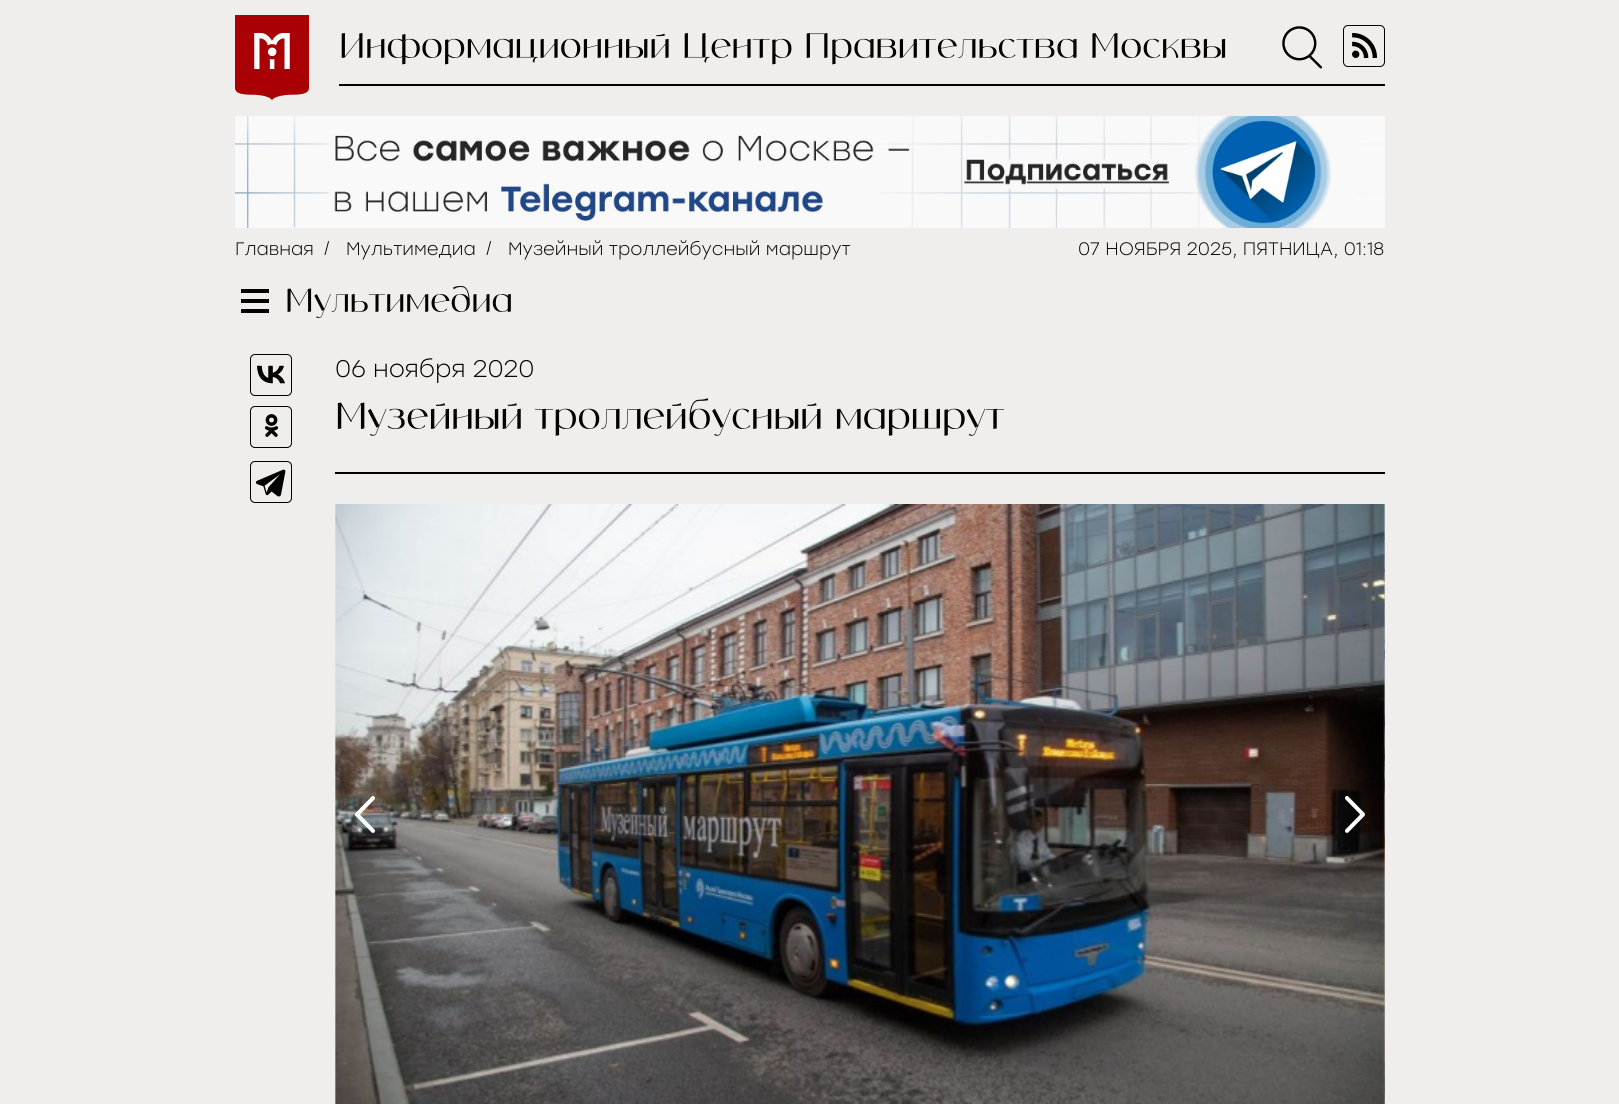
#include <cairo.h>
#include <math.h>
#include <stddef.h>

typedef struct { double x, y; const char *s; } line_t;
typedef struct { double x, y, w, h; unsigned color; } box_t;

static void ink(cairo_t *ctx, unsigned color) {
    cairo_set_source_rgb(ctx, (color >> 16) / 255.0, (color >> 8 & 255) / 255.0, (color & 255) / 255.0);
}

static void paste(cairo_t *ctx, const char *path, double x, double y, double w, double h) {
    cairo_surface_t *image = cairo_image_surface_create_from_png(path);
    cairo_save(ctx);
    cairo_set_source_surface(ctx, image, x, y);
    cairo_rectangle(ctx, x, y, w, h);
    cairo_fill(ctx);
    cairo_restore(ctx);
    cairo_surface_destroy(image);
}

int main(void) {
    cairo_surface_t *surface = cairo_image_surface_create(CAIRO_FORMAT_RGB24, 1619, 1104);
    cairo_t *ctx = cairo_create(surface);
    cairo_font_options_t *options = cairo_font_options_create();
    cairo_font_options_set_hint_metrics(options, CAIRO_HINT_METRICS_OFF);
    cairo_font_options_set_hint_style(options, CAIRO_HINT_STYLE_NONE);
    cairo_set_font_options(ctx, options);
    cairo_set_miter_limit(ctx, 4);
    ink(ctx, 0xEFEEEC);
    cairo_paint(ctx);
    paste(ctx, "media/1.png", 235, 15, 74, 86);
    ink(ctx, 0x000000);
    cairo_rectangle(ctx, 339, 84, 1046, 2);
    cairo_fill(ctx);
    cairo_select_font_face(ctx, "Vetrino", CAIRO_FONT_SLANT_NORMAL, CAIRO_FONT_WEIGHT_NORMAL);
    cairo_set_font_size(ctx, 34);
    cairo_move_to(ctx, 339, 58);
    cairo_show_text(ctx, "Информационный Центр Правительства Москвы");
    paste(ctx, "media/2.png", 1282, 26, 40, 43);
    paste(ctx, "media/3.png", 1343, 25, 42, 42);
    paste(ctx, "media/4.png", 235, 116, 1150, 112);
    cairo_select_font_face(ctx, "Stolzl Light", CAIRO_FONT_SLANT_NORMAL, CAIRO_FONT_WEIGHT_NORMAL);
    cairo_set_font_size(ctx, 18);
    {
        static const line_t items[] = {
            {235, 255, "Главная"},
            {324, 255, "/"},
            {346, 255, "Мультимедиа"},
            {486, 255, "/"},
            {508, 255, "Музейный троллейбусный маршрут"},
            {1078, 255, "07 НОЯБРЯ 2025, ПЯТНИЦА, 01:18"},
        };
        for (size_t i = 0; i < sizeof items / sizeof *items; i++) {
            cairo_move_to(ctx, items[i].x, items[i].y);
            cairo_show_text(ctx, items[i].s);
        }
    }
    {
        static const box_t items[] = {
            {241, 289, 28, 4, 0x000000},
            {241, 299, 28, 4, 0x000000},
            {241, 309, 28, 4, 0x000000},
        };
        for (size_t i = 0; i < sizeof items / sizeof *items; i++) {
            ink(ctx, items[i].color);
            cairo_rectangle(ctx, items[i].x, items[i].y, items[i].w, items[i].h);
            cairo_fill(ctx);
        }
    }
    cairo_select_font_face(ctx, "Vetrino", CAIRO_FONT_SLANT_NORMAL, CAIRO_FONT_WEIGHT_NORMAL);
    cairo_set_font_size(ctx, 32);
    cairo_move_to(ctx, 285, 312);
    cairo_show_text(ctx, "Мультимедиа");
    paste(ctx, "media/5.png", 250, 354, 42, 42);
    paste(ctx, "media/6.png", 250, 406, 42, 42);
    paste(ctx, "media/7.png", 250, 461, 42, 42);
    cairo_select_font_face(ctx, "Stolzl Light", CAIRO_FONT_SLANT_NORMAL, CAIRO_FONT_WEIGHT_NORMAL);
    cairo_set_font_size(ctx, 24);
    cairo_move_to(ctx, 335, 377);
    cairo_show_text(ctx, "06 ноября 2020");
    cairo_select_font_face(ctx, "Vetrino", CAIRO_FONT_SLANT_NORMAL, CAIRO_FONT_WEIGHT_NORMAL);
    cairo_set_font_size(ctx, 36);
    cairo_move_to(ctx, 335, 429);
    cairo_show_text(ctx, "Музейный троллейбусный маршрут");
    cairo_rectangle(ctx, 335, 472, 1050, 2);
    cairo_fill(ctx);
    paste(ctx, "media/8.png", 335, 504, 1050, 600);
    paste(ctx, "media/9.png", 1384, 504, 1, 597);
    paste(ctx, "media/10.png", 355, 796, 20, 37);
    paste(ctx, "media/11.png", 1345, 796, 20, 37);
    cairo_surface_write_to_png(surface, "image.png");
    cairo_font_options_destroy(options);
    cairo_destroy(ctx);
    cairo_surface_destroy(surface);
    return 0;
}
